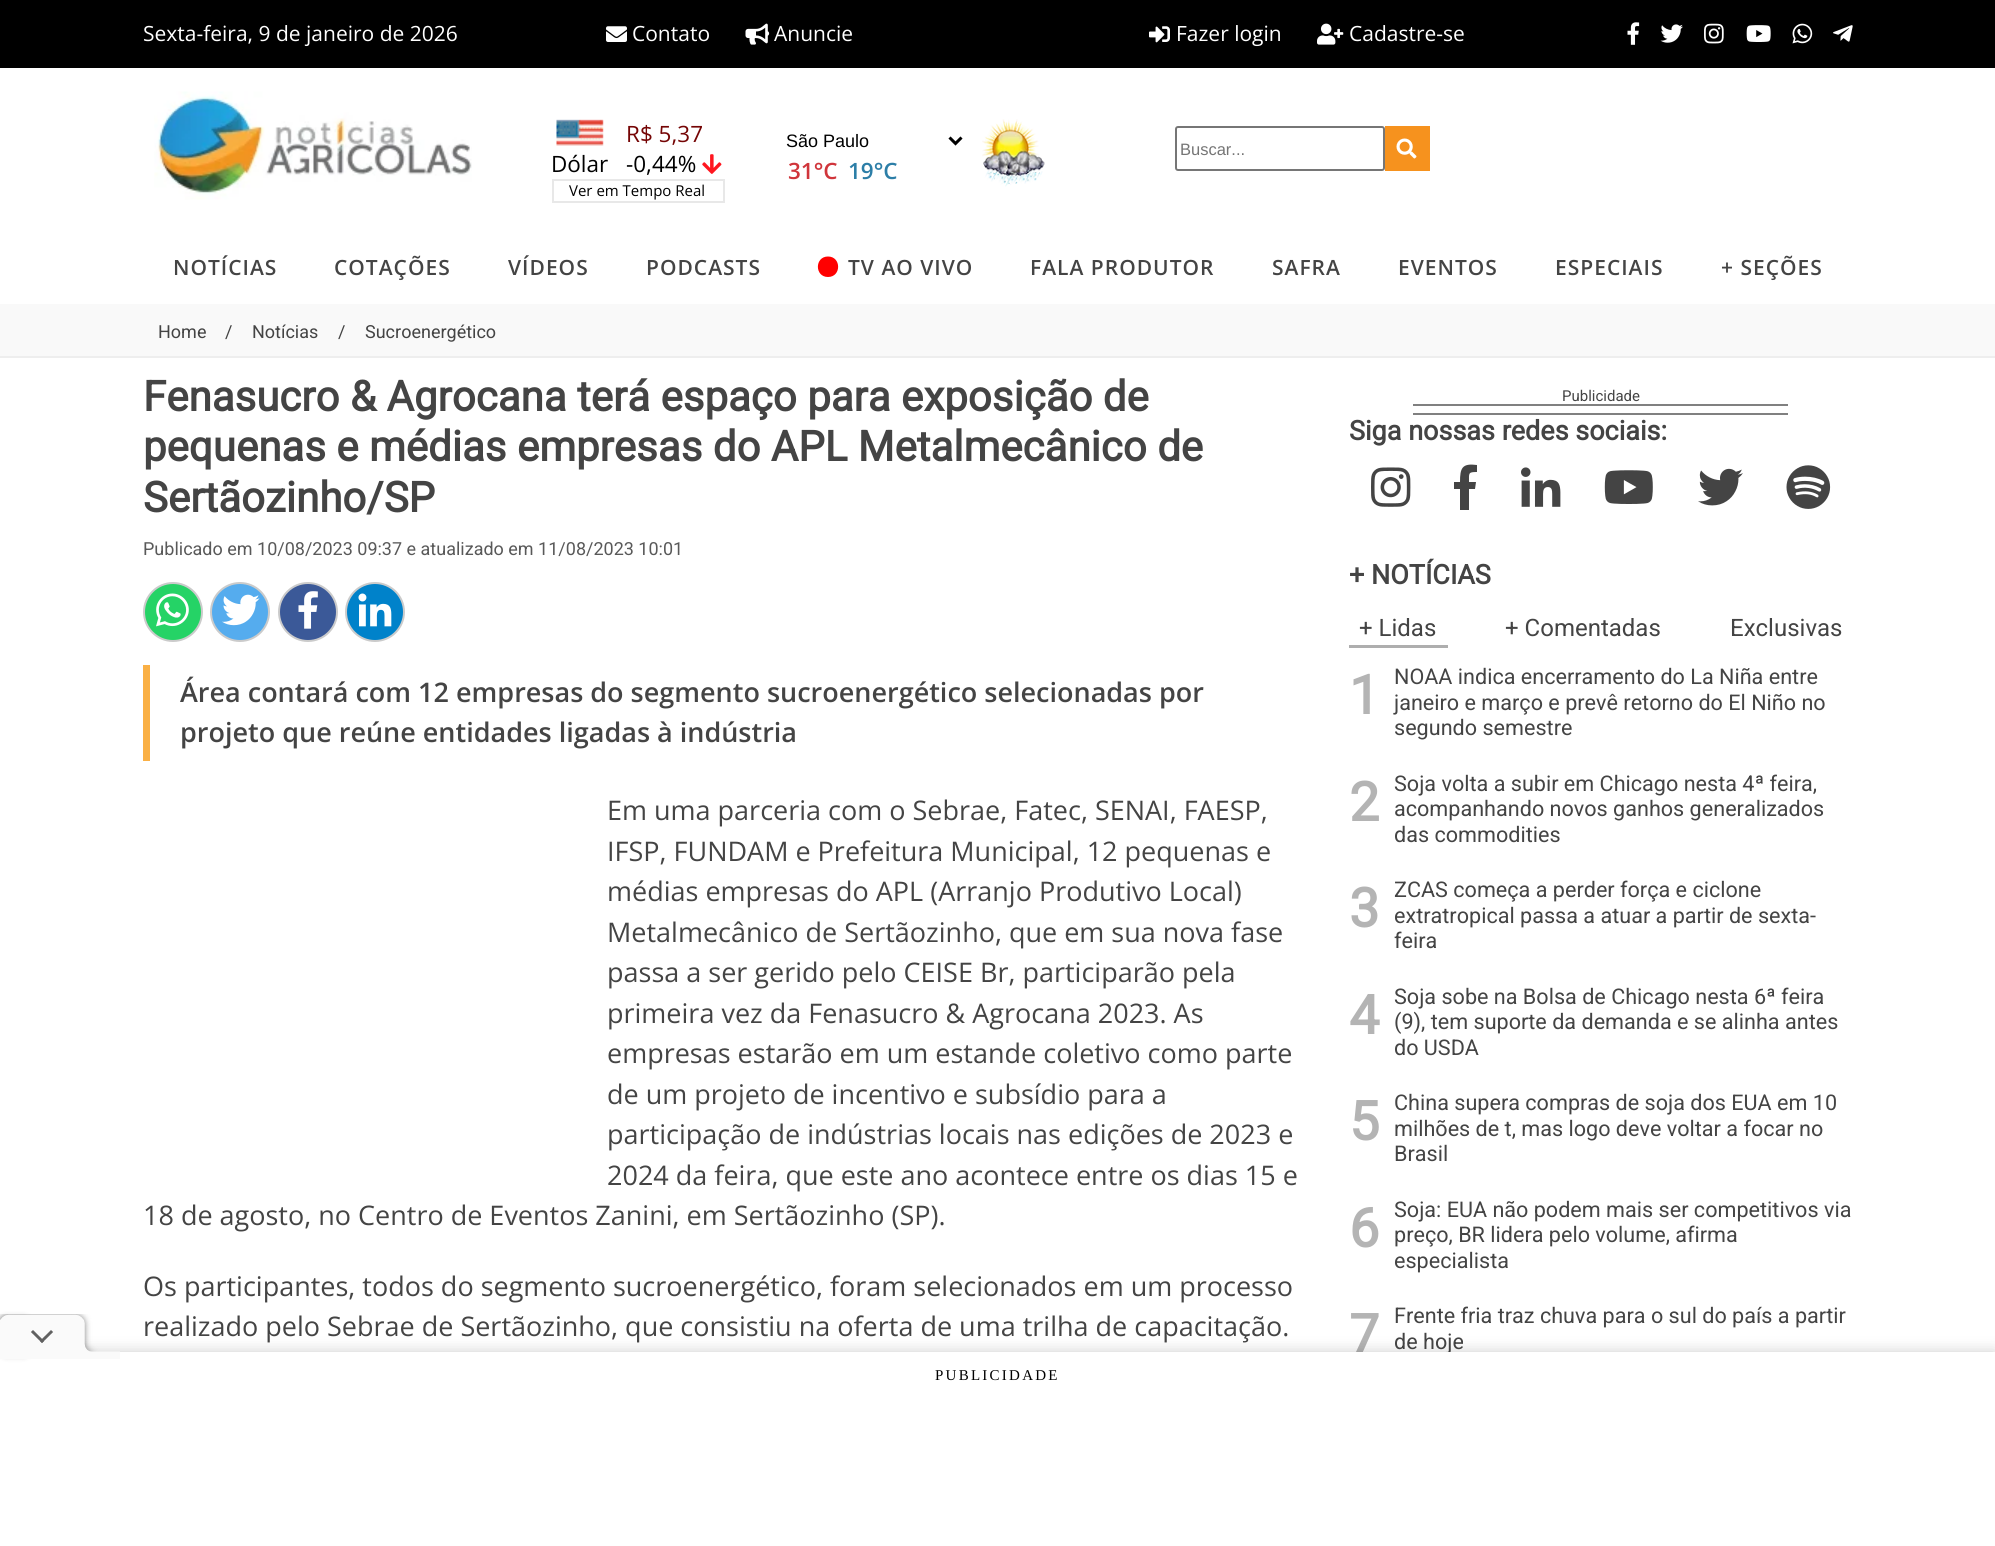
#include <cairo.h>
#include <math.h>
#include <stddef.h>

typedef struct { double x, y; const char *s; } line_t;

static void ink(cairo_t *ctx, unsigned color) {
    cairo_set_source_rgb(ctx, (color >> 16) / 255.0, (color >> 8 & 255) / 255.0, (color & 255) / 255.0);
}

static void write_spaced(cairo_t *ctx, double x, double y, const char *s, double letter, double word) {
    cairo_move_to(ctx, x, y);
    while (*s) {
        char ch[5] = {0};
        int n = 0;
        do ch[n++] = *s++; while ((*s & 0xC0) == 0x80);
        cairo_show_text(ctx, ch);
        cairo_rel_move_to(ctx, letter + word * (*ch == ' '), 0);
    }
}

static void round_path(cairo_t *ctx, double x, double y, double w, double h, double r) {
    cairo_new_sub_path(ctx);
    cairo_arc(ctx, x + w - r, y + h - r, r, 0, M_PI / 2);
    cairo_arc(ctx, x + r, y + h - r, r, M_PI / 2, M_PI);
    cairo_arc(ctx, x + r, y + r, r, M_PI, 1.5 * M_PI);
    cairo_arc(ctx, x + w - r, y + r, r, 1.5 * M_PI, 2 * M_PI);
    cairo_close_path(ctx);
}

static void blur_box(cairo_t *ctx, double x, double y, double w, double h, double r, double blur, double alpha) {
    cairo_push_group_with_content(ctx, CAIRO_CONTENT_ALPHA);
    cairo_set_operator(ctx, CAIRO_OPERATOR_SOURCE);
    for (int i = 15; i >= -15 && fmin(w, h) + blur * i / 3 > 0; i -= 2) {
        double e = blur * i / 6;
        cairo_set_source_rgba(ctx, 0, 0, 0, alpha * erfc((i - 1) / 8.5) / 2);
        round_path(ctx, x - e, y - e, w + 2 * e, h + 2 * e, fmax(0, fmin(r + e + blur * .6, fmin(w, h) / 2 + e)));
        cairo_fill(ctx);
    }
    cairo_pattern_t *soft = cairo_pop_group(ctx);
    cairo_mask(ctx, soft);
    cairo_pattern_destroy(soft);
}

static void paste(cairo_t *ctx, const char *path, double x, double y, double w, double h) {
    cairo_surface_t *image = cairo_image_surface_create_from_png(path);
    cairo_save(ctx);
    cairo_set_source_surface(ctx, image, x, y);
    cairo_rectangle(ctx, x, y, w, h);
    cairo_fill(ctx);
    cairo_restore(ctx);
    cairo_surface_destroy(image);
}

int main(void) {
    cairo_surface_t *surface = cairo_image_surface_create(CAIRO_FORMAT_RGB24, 1995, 1546);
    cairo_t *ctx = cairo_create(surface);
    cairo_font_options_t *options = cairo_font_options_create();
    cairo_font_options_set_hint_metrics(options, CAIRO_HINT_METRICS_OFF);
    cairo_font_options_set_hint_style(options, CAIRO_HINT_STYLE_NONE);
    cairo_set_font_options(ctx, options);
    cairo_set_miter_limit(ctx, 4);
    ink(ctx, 0xFFFFFF);
    cairo_paint(ctx);
    ink(ctx, 0x000000);
    cairo_rectangle(ctx, 0, 0, 1995, 68);
    cairo_fill(ctx);
    cairo_select_font_face(ctx, "Open Sans", CAIRO_FONT_SLANT_NORMAL, CAIRO_FONT_WEIGHT_NORMAL);
    cairo_set_font_size(ctx, 21);
    ink(ctx, 0xFFFFFF);
    cairo_move_to(ctx, 143, 41);
    cairo_show_text(ctx, "Sexta-feira, 9 de janeiro de 2026");
    paste(ctx, "media/1.png", 606, 26, 21, 16);
    cairo_move_to(ctx, 632, 41);
    cairo_show_text(ctx, "Contato");
    paste(ctx, "media/2.png", 745, 23, 25, 22);
    cairo_move_to(ctx, 774, 41);
    cairo_show_text(ctx, "Anuncie");
    paste(ctx, "media/3.png", 1149, 26, 21, 17);
    cairo_move_to(ctx, 1176, 41);
    cairo_show_text(ctx, "Fazer login");
    paste(ctx, "media/4.png", 1317, 23, 27, 22);
    cairo_move_to(ctx, 1349, 41);
    cairo_show_text(ctx, "Cadastre-se");
    paste(ctx, "media/5.png", 1627, 22, 13, 23);
    paste(ctx, "media/6.png", 1660, 24, 23, 19);
    paste(ctx, "media/7.png", 1704, 23, 20, 21);
    paste(ctx, "media/8.png", 1746, 25, 25, 17);
    paste(ctx, "media/9.png", 1792, 23, 21, 21);
    paste(ctx, "media/10.png", 1833, 25, 20, 17);
    paste(ctx, "media/11.png", 154, 91, 318, 109);
    paste(ctx, "media/12.png", 556, 119, 48, 27);
    cairo_set_font_size(ctx, 22.5);
    ink(ctx, 0x750505);
    cairo_move_to(ctx, 626, 142);
    cairo_show_text(ctx, "R$ 5,37");
    ink(ctx, 0x000000);
    cairo_move_to(ctx, 551, 172);
    cairo_show_text(ctx, "Dólar");
    cairo_move_to(ctx, 626, 172);
    cairo_show_text(ctx, "-0,44%");
    paste(ctx, "media/13.png", 702, 154, 20, 20);
    cairo_rectangle(ctx, 553, 180, 171, 22);
    ink(ctx, 0xE8E8E8);
    cairo_stroke(ctx);
    cairo_set_font_size(ctx, 15);
    ink(ctx, 0x000000);
    cairo_move_to(ctx, 569, 196);
    cairo_show_text(ctx, "Ver em Tempo Real");
    cairo_new_path(ctx);
    cairo_move_to(ctx, 949.5, 137.5);
    cairo_line_to(ctx, 955.5, 143.5);
    cairo_line_to(ctx, 961.5, 137.5);
    cairo_set_line_width(ctx, 3);
    cairo_stroke(ctx);
    cairo_select_font_face(ctx, "Liberation Sans", CAIRO_FONT_SLANT_NORMAL, CAIRO_FONT_WEIGHT_NORMAL);
    cairo_set_font_size(ctx, 18);
    cairo_move_to(ctx, 786, 147);
    cairo_show_text(ctx, "São Paulo");
    cairo_select_font_face(ctx, "Open Sans SemiBold", CAIRO_FONT_SLANT_NORMAL, CAIRO_FONT_WEIGHT_NORMAL);
    cairo_set_font_size(ctx, 22.5);
    ink(ctx, 0xD0353B);
    cairo_move_to(ctx, 788, 179);
    cairo_show_text(ctx, "31°C");
    ink(ctx, 0x2C7EA7);
    cairo_move_to(ctx, 848, 179);
    cairo_show_text(ctx, "19°C");
    paste(ctx, "media/14.png", 982, 119, 63, 68);
    round_path(ctx, 1176, 127, 208, 43, 2);
    ink(ctx, 0x767676);
    cairo_set_line_width(ctx, 2);
    cairo_stroke(ctx);
    cairo_select_font_face(ctx, "Liberation Sans", CAIRO_FONT_SLANT_NORMAL, CAIRO_FONT_WEIGHT_NORMAL);
    cairo_set_font_size(ctx, 16.5);
    ink(ctx, 0x757575);
    cairo_move_to(ctx, 1180, 155);
    cairo_show_text(ctx, "Buscar...");
    ink(ctx, 0xF6921E);
    cairo_rectangle(ctx, 1385, 126, 45, 45);
    cairo_fill(ctx);
    paste(ctx, "media/15.png", 1396, 138, 21, 21);
    cairo_select_font_face(ctx, "Open Sans SemiBold", CAIRO_FONT_SLANT_NORMAL, CAIRO_FONT_WEIGHT_NORMAL);
    cairo_set_font_size(ctx, 21);
    ink(ctx, 0x444444);
    {
        static const line_t items[] = {
            {173, 275, "NOTÍCIAS"},
            {334, 275, "COTAÇÕES"},
            {508, 275, "VÍDEOS"},
            {646, 275, "PODCASTS"},
        };
        for (size_t i = 0; i < sizeof items / sizeof *items; i++) {
            write_spaced(ctx, items[i].x, items[i].y, items[i].s, 1, 0);
        }
    }
    ink(ctx, 0xFF0000);
    cairo_new_path(ctx);
    cairo_move_to(ctx, 828, 256.5);
    cairo_curve_to(ctx, 814.5, 256.5, 814.5, 277, 828, 277);
    cairo_curve_to(ctx, 841.5, 277, 841.5, 256.5, 828, 256.5);
    cairo_close_path(ctx);
    cairo_fill(ctx);
    ink(ctx, 0x444444);
    {
        static const line_t items[] = {
            {848, 275, "TV AO VIVO"},
            {1030, 275, "FALA PRODUTOR"},
            {1272, 275, "SAFRA"},
            {1398, 275, "EVENTOS"},
            {1555, 275, "ESPECIAIS"},
            {1721, 275, "+ SEÇÕES"},
        };
        for (size_t i = 0; i < sizeof items / sizeof *items; i++) {
            write_spaced(ctx, items[i].x, items[i].y, items[i].s, 1, 0);
        }
    }
    ink(ctx, 0xF9F9F9);
    cairo_rectangle(ctx, 0, 304, 1995, 52);
    cairo_fill(ctx);
    ink(ctx, 0xEEEEEE);
    cairo_rectangle(ctx, 0, 356, 1995, 2);
    cairo_fill(ctx);
    cairo_select_font_face(ctx, "Roboto", CAIRO_FONT_SLANT_NORMAL, CAIRO_FONT_WEIGHT_NORMAL);
    cairo_set_font_size(ctx, 18);
    ink(ctx, 0x444444);
    {
        static const line_t items[] = {
            {158, 338, "Home"},
            {225, 338, "/"},
            {252, 338, "Notícias"},
            {338, 338, "/"},
            {365, 338, "Sucroenergético"},
        };
        for (size_t i = 0; i < sizeof items / sizeof *items; i++) {
            cairo_move_to(ctx, items[i].x, items[i].y);
            cairo_show_text(ctx, items[i].s);
        }
    }
    cairo_select_font_face(ctx, "Roboto", CAIRO_FONT_SLANT_NORMAL, CAIRO_FONT_WEIGHT_BOLD);
    cairo_set_font_size(ctx, 42);
    {
        static const line_t items[] = {
            {143, 411, "Fenasucro & Agrocana terá espaço para exposição de"},
            {143, 461, "pequenas e médias empresas do APL Metalmecânico de"},
            {143, 512, "Sertãozinho/SP"},
        };
        for (size_t i = 0; i < sizeof items / sizeof *items; i++) {
            cairo_move_to(ctx, items[i].x, items[i].y);
            cairo_show_text(ctx, items[i].s);
        }
    }
    cairo_select_font_face(ctx, "Roboto", CAIRO_FONT_SLANT_NORMAL, CAIRO_FONT_WEIGHT_NORMAL);
    cairo_set_font_size(ctx, 18);
    ink(ctx, 0x595959);
    cairo_move_to(ctx, 143, 555);
    cairo_show_text(ctx, "Publicado em 10/08/2023 09:37 e atualizado em 11/08/2023 10:01");
    ink(ctx, 0x25D366);
    cairo_new_path(ctx);
    cairo_arc(ctx, 173, 612, 29, 0, 2 * M_PI);
    cairo_fill_preserve(ctx);
    ink(ctx, 0xCBCBCB);
    cairo_stroke(ctx);
    paste(ctx, "media/16.png", 156, 593, 33, 34);
    ink(ctx, 0x55ACEE);
    cairo_arc(ctx, 240, 612, 29, 0, 2 * M_PI);
    cairo_fill_preserve(ctx);
    ink(ctx, 0xCBCBCB);
    cairo_stroke(ctx);
    paste(ctx, "media/17.png", 222, 594, 38, 32);
    ink(ctx, 0x3B5998);
    cairo_arc(ctx, 308, 612, 29, 0, 2 * M_PI);
    cairo_fill_preserve(ctx);
    ink(ctx, 0xCBCBCB);
    cairo_stroke(ctx);
    paste(ctx, "media/18.png", 298, 591, 20, 38);
    ink(ctx, 0x0082CA);
    cairo_arc(ctx, 375, 612, 29, 0, 2 * M_PI);
    cairo_fill_preserve(ctx);
    ink(ctx, 0xCBCBCB);
    cairo_stroke(ctx);
    paste(ctx, "media/19.png", 358, 593, 34, 34);
    ink(ctx, 0xFAB045);
    cairo_rectangle(ctx, 143, 665, 7, 96);
    cairo_fill(ctx);
    cairo_select_font_face(ctx, "Open Sans SemiBold", CAIRO_FONT_SLANT_NORMAL, CAIRO_FONT_WEIGHT_NORMAL);
    cairo_set_font_size(ctx, 27);
    ink(ctx, 0x444444);
    cairo_move_to(ctx, 180, 702);
    cairo_show_text(ctx, "Área contará com 12 empresas do segmento sucroenergético selecionadas por");
    cairo_move_to(ctx, 180, 742);
    cairo_show_text(ctx, "projeto que reúne entidades ligadas à indústria");
    cairo_select_font_face(ctx, "Open Sans", CAIRO_FONT_SLANT_NORMAL, CAIRO_FONT_WEIGHT_NORMAL);
    {
        static const line_t items[] = {
            {607, 820, "Em uma parceria com o Sebrae, Fatec, SENAI, FAESP,"},
            {607, 861, "IFSP, FUNDAM e Prefeitura Municipal, 12 pequenas e"},
            {607, 901, "médias empresas do APL (Arranjo Produtivo Local)"},
            {607, 942, "Metalmecânico de Sertãozinho, que em sua nova fase"},
            {607, 982, "passa a ser gerido pelo CEISE Br, participarão pela"},
            {607, 1023, "primeira vez da Fenasucro & Agrocana 2023. As"},
            {607, 1063, "empresas estarão em um estande coletivo como parte"},
            {607, 1104, "de um projeto de incentivo e subsídio para a"},
            {607, 1144, "participação de indústrias locais nas edições de 2023 e"},
            {607, 1185, "2024 da feira, que este ano acontece entre os dias 15 e"},
            {143, 1225, "18 de agosto, no Centro de Eventos Zanini, em Sertãozinho (SP)."},
            {143, 1296, "Os participantes, todos do segmento sucroenergético, foram selecionados em um processo"},
            {143, 1336, "realizado pelo Sebrae de Sertãozinho, que consistiu na oferta de uma trilha de capacitação."},
        };
        for (size_t i = 0; i < sizeof items / sizeof *items; i++) {
            cairo_move_to(ctx, items[i].x, items[i].y);
            cairo_show_text(ctx, items[i].s);
        }
    }
    ink(ctx, 0x808080);
    cairo_rectangle(ctx, 1413, 404, 375, 2);
    cairo_fill(ctx);
    cairo_select_font_face(ctx, "Roboto", CAIRO_FONT_SLANT_NORMAL, CAIRO_FONT_WEIGHT_NORMAL);
    cairo_set_font_size(ctx, 15);
    ink(ctx, 0x444444);
    cairo_move_to(ctx, 1562, 401);
    cairo_show_text(ctx, "Publicidade");
    ink(ctx, 0x808080);
    cairo_rectangle(ctx, 1413, 413, 375, 2);
    cairo_fill(ctx);
    cairo_select_font_face(ctx, "Roboto", CAIRO_FONT_SLANT_NORMAL, CAIRO_FONT_WEIGHT_BOLD);
    cairo_set_font_size(ctx, 27);
    ink(ctx, 0x444444);
    cairo_move_to(ctx, 1349, 440);
    cairo_show_text(ctx, "Siga nossas redes sociais:");
    paste(ctx, "media/20.png", 1371, 467, 40, 40);
    cairo_new_path(ctx);
    cairo_move_to(ctx, 1460, 510);
    cairo_line_to(ctx, 1460, 489);
    cairo_line_to(ctx, 1454, 489);
    cairo_line_to(ctx, 1454, 482);
    cairo_line_to(ctx, 1460, 482);
    cairo_curve_to(ctx, 1460, 468, 1462, 463, 1477, 465);
    cairo_line_to(ctx, 1477, 472);
    cairo_curve_to(ctx, 1468, 472, 1469, 473, 1469, 482);
    cairo_line_to(ctx, 1476, 482);
    cairo_line_to(ctx, 1475, 489);
    cairo_line_to(ctx, 1469, 489);
    cairo_line_to(ctx, 1469, 510);
    cairo_close_path(ctx);
    cairo_fill(ctx);
    paste(ctx, "media/21.png", 1521, 467, 40, 40);
    paste(ctx, "media/22.png", 1604, 470, 49, 34);
    paste(ctx, "media/23.png", 1698, 468, 45, 38);
    paste(ctx, "media/24.png", 1786, 465, 45, 44);
    cairo_move_to(ctx, 1349, 584);
    cairo_show_text(ctx, "+ NOTÍCIAS");
    cairo_select_font_face(ctx, "Roboto", CAIRO_FONT_SLANT_NORMAL, CAIRO_FONT_WEIGHT_NORMAL);
    cairo_set_font_size(ctx, 24);
    cairo_move_to(ctx, 1359, 636);
    cairo_show_text(ctx, "+ Lidas");
    ink(ctx, 0xAEAEAE);
    cairo_rectangle(ctx, 1349, 645, 99, 3);
    cairo_fill(ctx);
    ink(ctx, 0x444444);
    cairo_move_to(ctx, 1505, 636);
    cairo_show_text(ctx, "+ Comentadas");
    cairo_move_to(ctx, 1730, 636);
    cairo_show_text(ctx, "Exclusivas");
    cairo_select_font_face(ctx, "Roboto", CAIRO_FONT_SLANT_NORMAL, CAIRO_FONT_WEIGHT_BOLD);
    cairo_set_font_size(ctx, 54);
    ink(ctx, 0xB4B4B4);
    cairo_move_to(ctx, 1349, 714);
    cairo_show_text(ctx, "1");
    cairo_select_font_face(ctx, "Roboto", CAIRO_FONT_SLANT_NORMAL, CAIRO_FONT_WEIGHT_NORMAL);
    cairo_set_font_size(ctx, 21.6);
    ink(ctx, 0x444444);
    {
        static const line_t items[] = {
            {1394, 684, "NOAA indica encerramento do La Niña entre"},
            {1394, 710, "janeiro e março e prevê retorno do El Niño no"},
            {1394, 735, "segundo semestre"},
        };
        for (size_t i = 0; i < sizeof items / sizeof *items; i++) {
            cairo_move_to(ctx, items[i].x, items[i].y);
            cairo_show_text(ctx, items[i].s);
        }
    }
    cairo_select_font_face(ctx, "Roboto", CAIRO_FONT_SLANT_NORMAL, CAIRO_FONT_WEIGHT_BOLD);
    cairo_set_font_size(ctx, 54);
    ink(ctx, 0xB4B4B4);
    cairo_move_to(ctx, 1349, 821);
    cairo_show_text(ctx, "2");
    cairo_select_font_face(ctx, "Roboto", CAIRO_FONT_SLANT_NORMAL, CAIRO_FONT_WEIGHT_NORMAL);
    cairo_set_font_size(ctx, 21.6);
    ink(ctx, 0x444444);
    {
        static const line_t items[] = {
            {1394, 791, "Soja volta a subir em Chicago nesta 4ª feira,"},
            {1394, 816, "acompanhando novos ganhos generalizados"},
            {1394, 842, "das commodities"},
        };
        for (size_t i = 0; i < sizeof items / sizeof *items; i++) {
            cairo_move_to(ctx, items[i].x, items[i].y);
            cairo_show_text(ctx, items[i].s);
        }
    }
    cairo_select_font_face(ctx, "Roboto", CAIRO_FONT_SLANT_NORMAL, CAIRO_FONT_WEIGHT_BOLD);
    cairo_set_font_size(ctx, 54);
    ink(ctx, 0xB4B4B4);
    cairo_move_to(ctx, 1349, 927);
    cairo_show_text(ctx, "3");
    cairo_select_font_face(ctx, "Roboto", CAIRO_FONT_SLANT_NORMAL, CAIRO_FONT_WEIGHT_NORMAL);
    cairo_set_font_size(ctx, 21.6);
    ink(ctx, 0x444444);
    {
        static const line_t items[] = {
            {1394, 897, "ZCAS começa a perder força e ciclone"},
            {1394, 923, "extratropical passa a atuar a partir de sexta-"},
            {1394, 948, "feira"},
        };
        for (size_t i = 0; i < sizeof items / sizeof *items; i++) {
            cairo_move_to(ctx, items[i].x, items[i].y);
            cairo_show_text(ctx, items[i].s);
        }
    }
    cairo_select_font_face(ctx, "Roboto", CAIRO_FONT_SLANT_NORMAL, CAIRO_FONT_WEIGHT_BOLD);
    cairo_set_font_size(ctx, 54);
    ink(ctx, 0xB4B4B4);
    cairo_move_to(ctx, 1349, 1034);
    cairo_show_text(ctx, "4");
    cairo_select_font_face(ctx, "Roboto", CAIRO_FONT_SLANT_NORMAL, CAIRO_FONT_WEIGHT_NORMAL);
    cairo_set_font_size(ctx, 21.6);
    ink(ctx, 0x444444);
    {
        static const line_t items[] = {
            {1394, 1004, "Soja sobe na Bolsa de Chicago nesta 6ª feira"},
            {1394, 1029, "(9), tem suporte da demanda e se alinha antes"},
            {1394, 1055, "do USDA"},
        };
        for (size_t i = 0; i < sizeof items / sizeof *items; i++) {
            cairo_move_to(ctx, items[i].x, items[i].y);
            cairo_show_text(ctx, items[i].s);
        }
    }
    cairo_select_font_face(ctx, "Roboto", CAIRO_FONT_SLANT_NORMAL, CAIRO_FONT_WEIGHT_BOLD);
    cairo_set_font_size(ctx, 54);
    ink(ctx, 0xB4B4B4);
    cairo_move_to(ctx, 1349, 1140);
    cairo_show_text(ctx, "5");
    cairo_select_font_face(ctx, "Roboto", CAIRO_FONT_SLANT_NORMAL, CAIRO_FONT_WEIGHT_NORMAL);
    cairo_set_font_size(ctx, 21.6);
    ink(ctx, 0x444444);
    {
        static const line_t items[] = {
            {1394, 1110, "China supera compras de soja dos EUA em 10"},
            {1394, 1136, "milhões de t, mas logo deve voltar a focar no"},
            {1394, 1161, "Brasil"},
        };
        for (size_t i = 0; i < sizeof items / sizeof *items; i++) {
            cairo_move_to(ctx, items[i].x, items[i].y);
            cairo_show_text(ctx, items[i].s);
        }
    }
    cairo_select_font_face(ctx, "Roboto", CAIRO_FONT_SLANT_NORMAL, CAIRO_FONT_WEIGHT_BOLD);
    cairo_set_font_size(ctx, 54);
    ink(ctx, 0xB4B4B4);
    cairo_move_to(ctx, 1349, 1247);
    cairo_show_text(ctx, "6");
    cairo_select_font_face(ctx, "Roboto", CAIRO_FONT_SLANT_NORMAL, CAIRO_FONT_WEIGHT_NORMAL);
    cairo_set_font_size(ctx, 21.6);
    ink(ctx, 0x444444);
    {
        static const line_t items[] = {
            {1394, 1217, "Soja: EUA não podem mais ser competitivos via"},
            {1394, 1242, "preço, BR lidera pelo volume, afirma"},
            {1394, 1268, "especialista"},
        };
        for (size_t i = 0; i < sizeof items / sizeof *items; i++) {
            cairo_move_to(ctx, items[i].x, items[i].y);
            cairo_show_text(ctx, items[i].s);
        }
    }
    cairo_select_font_face(ctx, "Roboto", CAIRO_FONT_SLANT_NORMAL, CAIRO_FONT_WEIGHT_BOLD);
    cairo_set_font_size(ctx, 54);
    ink(ctx, 0xB4B4B4);
    cairo_move_to(ctx, 1349, 1353);
    cairo_show_text(ctx, "7");
    cairo_select_font_face(ctx, "Roboto", CAIRO_FONT_SLANT_NORMAL, CAIRO_FONT_WEIGHT_NORMAL);
    cairo_set_font_size(ctx, 21.6);
    ink(ctx, 0x444444);
    cairo_move_to(ctx, 1394, 1323);
    cairo_show_text(ctx, "Frente fria traz chuva para o sul do país a partir");
    cairo_move_to(ctx, 1394, 1349);
    cairo_show_text(ctx, "de hoje");
    ink(ctx, 0x000000);
    blur_box(ctx, 0, 1352, 1995, 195, 0, 7.5, 0.2);
    ink(ctx, 0xFFFFFF);
    cairo_rectangle(ctx, 0, 1352, 1995, 194);
    cairo_fill(ctx);
    ink(ctx, 0x000000);
    blur_box(ctx, 0, 1317, 30, 39, 6, 3, 0.27);
    paste(ctx, "media/25.png", 0, 1314, 120, 45);
    cairo_select_font_face(ctx, "Liberation Serif", CAIRO_FONT_SLANT_NORMAL, CAIRO_FONT_WEIGHT_NORMAL);
    cairo_set_font_size(ctx, 15);
    ink(ctx, 0x000000);
    write_spaced(ctx, 935, 1380, "PUBLICIDADE", 2.25, 0);
    cairo_surface_write_to_png(surface, "image.png");
    cairo_font_options_destroy(options);
    cairo_destroy(ctx);
    cairo_surface_destroy(surface);
    return 0;
}
